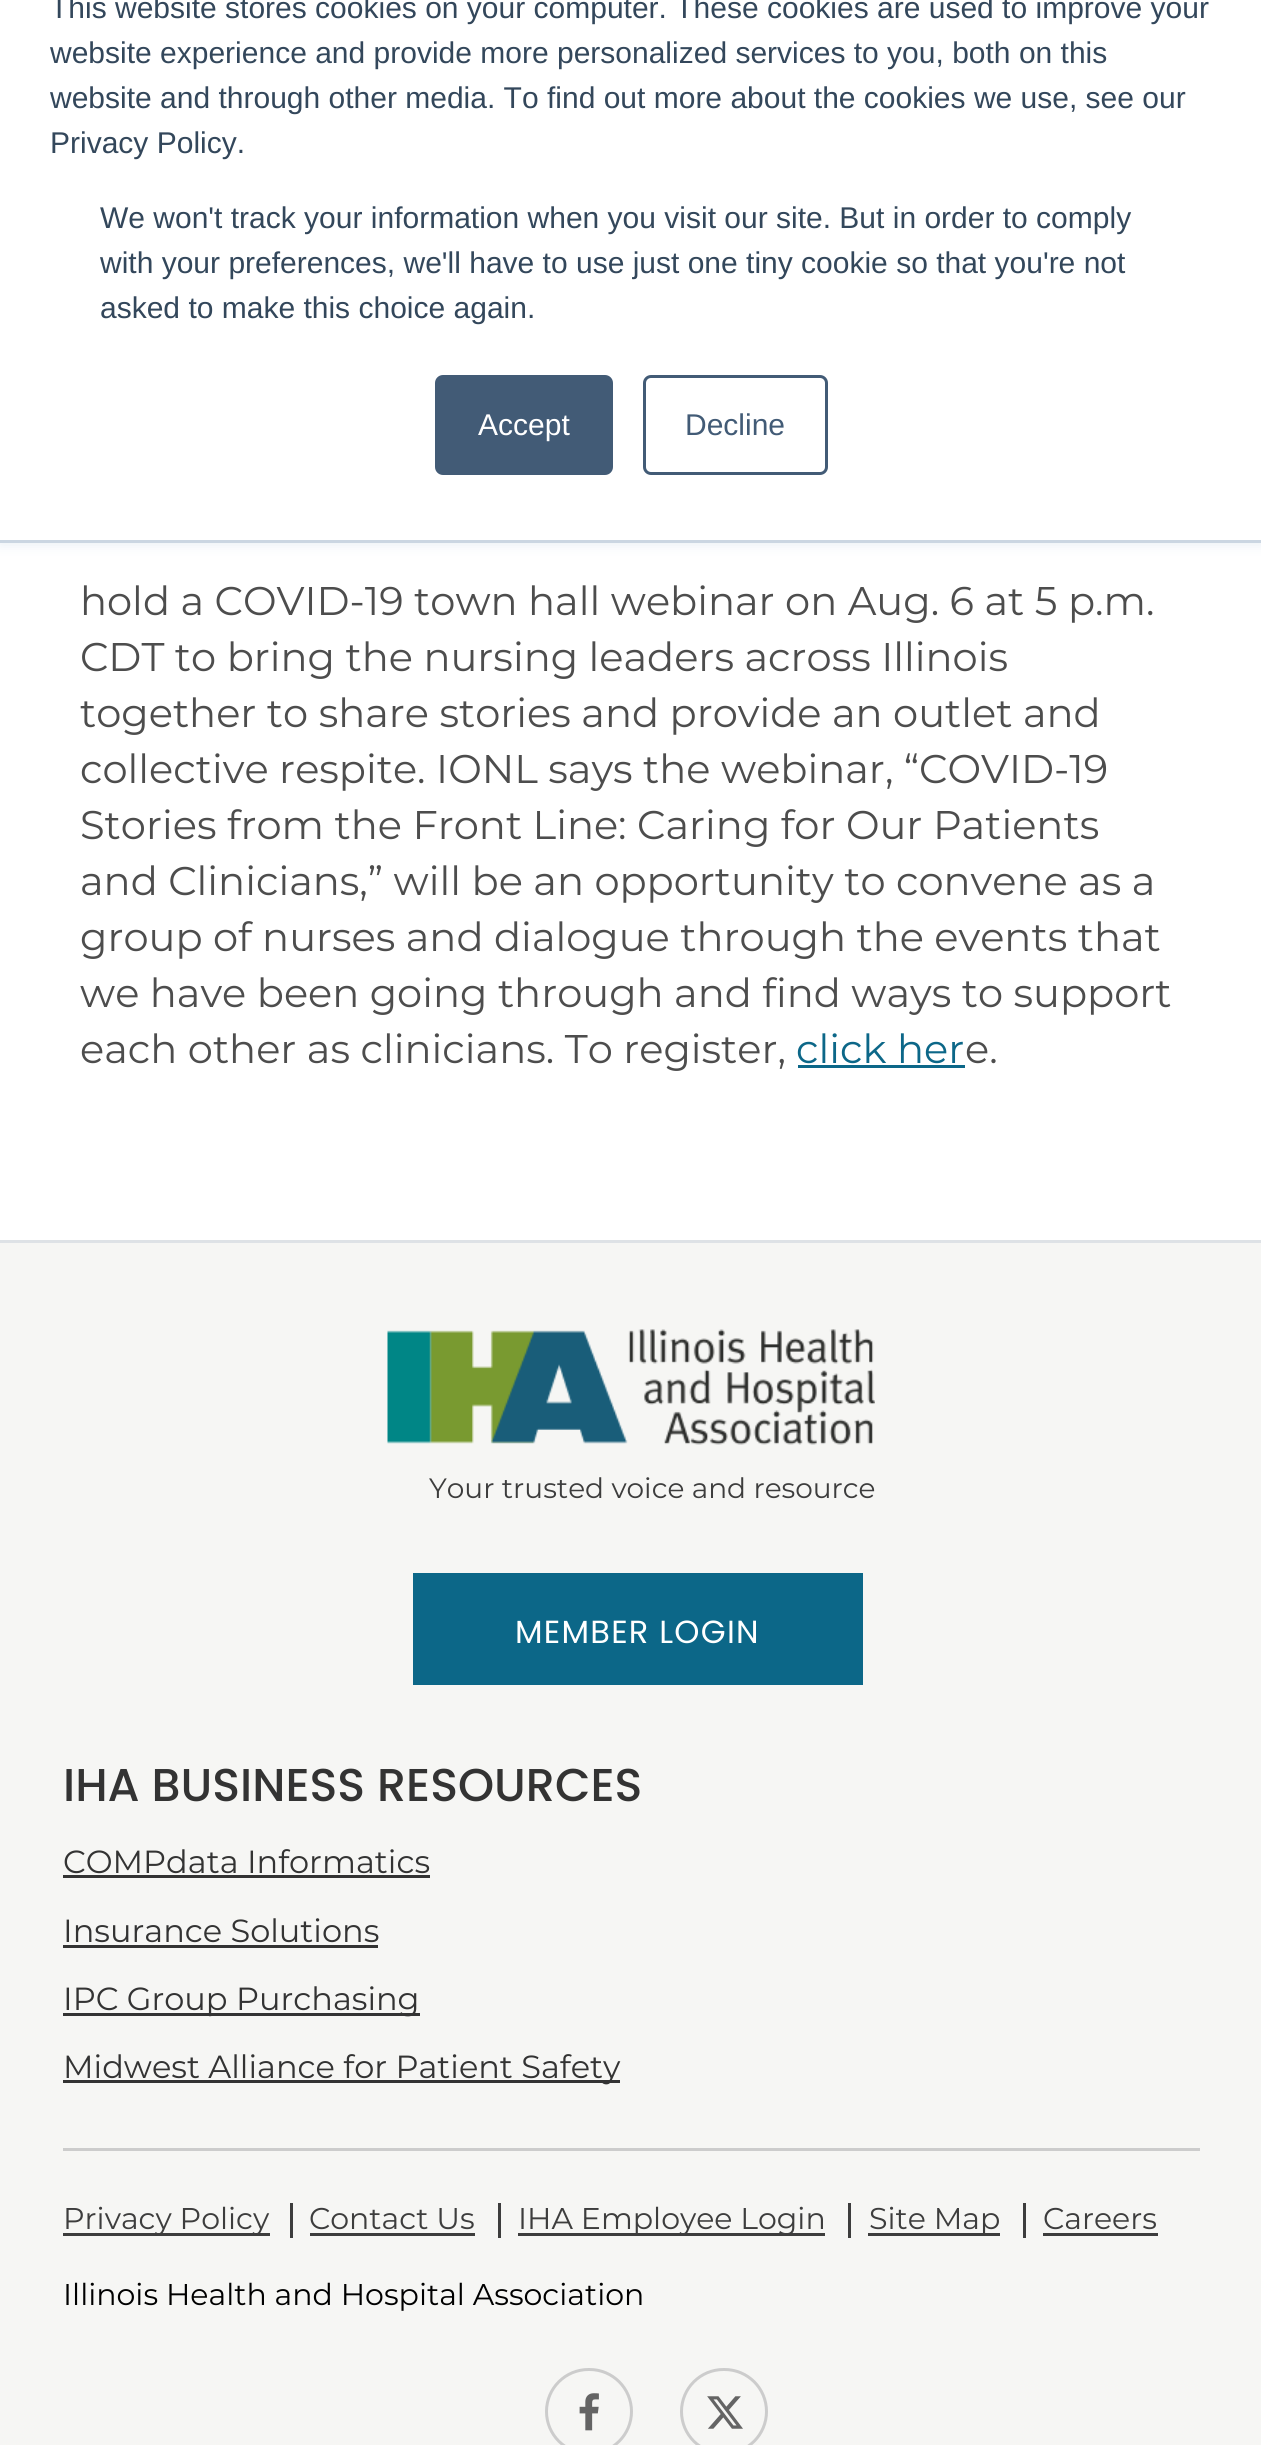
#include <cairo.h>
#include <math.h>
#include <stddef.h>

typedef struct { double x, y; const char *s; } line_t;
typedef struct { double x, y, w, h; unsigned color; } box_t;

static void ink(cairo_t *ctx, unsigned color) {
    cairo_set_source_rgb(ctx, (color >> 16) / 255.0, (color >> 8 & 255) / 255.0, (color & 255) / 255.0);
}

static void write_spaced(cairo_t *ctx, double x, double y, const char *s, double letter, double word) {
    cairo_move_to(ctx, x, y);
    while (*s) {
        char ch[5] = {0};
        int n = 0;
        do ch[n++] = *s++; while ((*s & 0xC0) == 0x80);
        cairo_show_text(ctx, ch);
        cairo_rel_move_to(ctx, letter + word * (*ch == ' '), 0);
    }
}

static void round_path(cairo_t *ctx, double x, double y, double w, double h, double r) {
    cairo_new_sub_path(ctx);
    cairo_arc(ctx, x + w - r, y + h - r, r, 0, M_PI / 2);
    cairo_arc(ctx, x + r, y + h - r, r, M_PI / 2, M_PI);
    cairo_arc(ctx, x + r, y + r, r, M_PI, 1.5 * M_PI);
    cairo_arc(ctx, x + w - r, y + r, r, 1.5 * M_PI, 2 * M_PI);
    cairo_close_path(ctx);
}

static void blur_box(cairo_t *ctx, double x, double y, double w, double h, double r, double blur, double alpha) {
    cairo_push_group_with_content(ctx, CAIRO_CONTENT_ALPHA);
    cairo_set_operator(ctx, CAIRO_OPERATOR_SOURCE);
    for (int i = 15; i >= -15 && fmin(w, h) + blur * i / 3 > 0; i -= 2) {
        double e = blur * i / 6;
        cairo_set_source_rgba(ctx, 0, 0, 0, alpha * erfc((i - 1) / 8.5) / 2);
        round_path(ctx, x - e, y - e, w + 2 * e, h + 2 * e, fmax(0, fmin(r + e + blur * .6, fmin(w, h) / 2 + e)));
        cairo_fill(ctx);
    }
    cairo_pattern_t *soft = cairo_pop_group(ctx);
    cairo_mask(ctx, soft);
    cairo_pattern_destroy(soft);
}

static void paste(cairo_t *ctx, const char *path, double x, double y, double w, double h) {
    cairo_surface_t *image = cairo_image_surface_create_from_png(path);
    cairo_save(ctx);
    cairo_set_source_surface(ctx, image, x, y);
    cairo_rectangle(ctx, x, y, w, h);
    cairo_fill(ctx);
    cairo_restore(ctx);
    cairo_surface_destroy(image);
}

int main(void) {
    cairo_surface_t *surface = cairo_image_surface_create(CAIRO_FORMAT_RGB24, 1261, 2445);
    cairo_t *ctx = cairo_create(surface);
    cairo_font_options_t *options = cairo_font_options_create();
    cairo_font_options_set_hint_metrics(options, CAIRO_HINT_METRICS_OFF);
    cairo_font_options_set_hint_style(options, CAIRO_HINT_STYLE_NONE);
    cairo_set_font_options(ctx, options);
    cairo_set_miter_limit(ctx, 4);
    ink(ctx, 0xFFFFFF);
    cairo_paint(ctx);
    ink(ctx, 0xEAF0F6);
    blur_box(ctx, 0, -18, 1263, 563, 0, 6, 1);
    ink(ctx, 0xFFFFFF);
    cairo_rectangle(ctx, 0, 0, 1261, 540);
    cairo_fill(ctx);
    ink(ctx, 0xCBD6E2);
    cairo_rectangle(ctx, 0, 540, 1261, 3);
    cairo_fill(ctx);
    cairo_select_font_face(ctx, "Liberation Sans", CAIRO_FONT_SLANT_NORMAL, CAIRO_FONT_WEIGHT_NORMAL);
    cairo_set_font_size(ctx, 30);
    ink(ctx, 0x33475B);
    {
        static const line_t items[] = {
            {50, 18, "This website stores cookies on your computer. These cookies are used to improve your"},
            {50, 63, "website experience and provide more personalized services to you, both on this"},
            {50, 108, "website and through other media. To find out more about the cookies we use, see our"},
            {50, 153, "Privacy Policy."},
            {100, 228, "We won't track your information when you visit our site. But in order to comply"},
            {100, 273, "with your preferences, we'll have to use just one tiny cookie so that you're not"},
            {100, 318, "asked to make this choice again."},
        };
        for (size_t i = 0; i < sizeof items / sizeof *items; i++) {
            cairo_move_to(ctx, items[i].x, items[i].y);
            cairo_show_text(ctx, items[i].s);
        }
    }
    ink(ctx, 0x425B76);
    round_path(ctx, 436.5, 376.5, 175, 97, 6.5);
    cairo_fill_preserve(ctx);
    cairo_set_line_width(ctx, 3);
    cairo_stroke(ctx);
    ink(ctx, 0xFFFFFF);
    cairo_move_to(ctx, 478, 435);
    cairo_show_text(ctx, "Accept");
    round_path(ctx, 644.5, 376.5, 182, 97, 6.5);
    ink(ctx, 0x425B76);
    cairo_stroke(ctx);
    cairo_move_to(ctx, 685, 435);
    cairo_show_text(ctx, "Decline");
    cairo_select_font_face(ctx, "Montserrat", CAIRO_FONT_SLANT_NORMAL, CAIRO_FONT_WEIGHT_NORMAL);
    cairo_set_font_size(ctx, 40);
    ink(ctx, 0x4D4D4D);
    {
        static const line_t items[] = {
            {80, 615, "hold a COVID-19 town hall webinar on Aug. 6 at 5 p.m."},
            {80, 671, "CDT to bring the nursing leaders across Illinois"},
            {80, 727, "together to share stories and provide an outlet and"},
            {80, 783, "collective respite. IONL says the webinar, “COVID-19"},
            {80, 839, "Stories from the Front Line: Caring for Our Patients"},
            {80, 895, "and Clinicians,” will be an opportunity to convene as a"},
            {80, 951, "group of nurses and dialogue through the events that"},
            {80, 1007, "we have been going through and find ways to support"},
            {80, 1063, "each other as clinicians. To register,"},
        };
        for (size_t i = 0; i < sizeof items / sizeof *items; i++) {
            cairo_move_to(ctx, items[i].x, items[i].y);
            cairo_show_text(ctx, items[i].s);
        }
    }
    ink(ctx, 0x0C6788);
    cairo_move_to(ctx, 796, 1063);
    cairo_show_text(ctx, "click her");
    cairo_rectangle(ctx, 798, 1065, 167, 3);
    cairo_fill(ctx);
    ink(ctx, 0x4D4D4D);
    cairo_move_to(ctx, 965, 1063);
    cairo_show_text(ctx, "e.");
    ink(ctx, 0xF6F6F4);
    cairo_rectangle(ctx, 0, 1243, 1261, 1202);
    cairo_fill(ctx);
    ink(ctx, 0xDEE2E6);
    cairo_rectangle(ctx, 0, 1240, 1261, 3);
    cairo_fill(ctx);
    paste(ctx, "media/1.png", 387, 1329, 488, 116);
    cairo_set_font_size(ctx, 28);
    ink(ctx, 0x3D3D3D);
    cairo_move_to(ctx, 429, 1498);
    cairo_show_text(ctx, "Your trusted voice and resource");
    ink(ctx, 0x0C6788);
    cairo_rectangle(ctx, 413, 1573, 450, 112);
    cairo_fill(ctx);
    cairo_select_font_face(ctx, "Poppins", CAIRO_FONT_SLANT_NORMAL, CAIRO_FONT_WEIGHT_NORMAL);
    cairo_set_font_size(ctx, 32);
    ink(ctx, 0xFFFFFF);
    write_spaced(ctx, 515, 1643, "MEMBER LOGIN", 1.25, 0);
    cairo_select_font_face(ctx, "Poppins Medium", CAIRO_FONT_SLANT_NORMAL, CAIRO_FONT_WEIGHT_NORMAL);
    cairo_set_font_size(ctx, 46);
    ink(ctx, 0x333333);
    cairo_move_to(ctx, 63, 1801);
    cairo_show_text(ctx, "IHA BUSINESS RESOURCES");
    cairo_select_font_face(ctx, "Montserrat", CAIRO_FONT_SLANT_NORMAL, CAIRO_FONT_WEIGHT_NORMAL);
    cairo_set_font_size(ctx, 32);
    cairo_move_to(ctx, 63, 1873);
    cairo_show_text(ctx, "COMPdata Informatics");
    cairo_rectangle(ctx, 63, 1875, 367, 3);
    cairo_fill(ctx);
    cairo_move_to(ctx, 63, 1942);
    cairo_show_text(ctx, "Insurance Solutions");
    cairo_rectangle(ctx, 63, 1945, 315, 3);
    cairo_fill(ctx);
    cairo_rectangle(ctx, 63, 2013, 357, 3);
    cairo_fill(ctx);
    cairo_move_to(ctx, 63, 2010);
    cairo_show_text(ctx, "IPC Group Purchasing");
    cairo_rectangle(ctx, 63, 2080, 557, 3);
    cairo_fill(ctx);
    cairo_move_to(ctx, 63, 2078);
    cairo_show_text(ctx, "Midwest Alliance for Patient Safety");
    {
        static const box_t items[] = {
            {63, 2148, 1137, 3, 0xCCCCCC},
            {290, 2203, 3, 35, 0x3D3D3D},
            {63, 2233, 207, 3, 0x3D3D3D},
        };
        for (size_t i = 0; i < sizeof items / sizeof *items; i++) {
            ink(ctx, items[i].color);
            cairo_rectangle(ctx, items[i].x, items[i].y, items[i].w, items[i].h);
            cairo_fill(ctx);
        }
    }
    cairo_set_font_size(ctx, 30);
    cairo_move_to(ctx, 63, 2229);
    cairo_show_text(ctx, "Privacy Policy");
    cairo_rectangle(ctx, 498, 2203, 3, 35);
    cairo_fill(ctx);
    cairo_move_to(ctx, 309, 2229);
    cairo_show_text(ctx, "Contact Us");
    {
        static const box_t items[] = {
            {310, 2233, 165, 3, 0x3D3D3D},
            {848, 2203, 3, 35, 0x3D3D3D},
            {518, 2233, 307, 3, 0x3D3D3D},
        };
        for (size_t i = 0; i < sizeof items / sizeof *items; i++) {
            ink(ctx, items[i].color);
            cairo_rectangle(ctx, items[i].x, items[i].y, items[i].w, items[i].h);
            cairo_fill(ctx);
        }
    }
    cairo_move_to(ctx, 518, 2229);
    cairo_show_text(ctx, "IHA Employee Login");
    cairo_rectangle(ctx, 1023, 2203, 3, 35);
    cairo_fill(ctx);
    cairo_rectangle(ctx, 868, 2233, 132, 3);
    cairo_fill(ctx);
    cairo_move_to(ctx, 869, 2229);
    cairo_show_text(ctx, "Site Map");
    cairo_move_to(ctx, 1043, 2229);
    cairo_show_text(ctx, "Careers");
    cairo_rectangle(ctx, 1043, 2233, 115, 3);
    cairo_fill(ctx);
    ink(ctx, 0x000000);
    cairo_move_to(ctx, 63, 2305);
    cairo_show_text(ctx, "Illinois Health and Hospital Association");
    round_path(ctx, 546.5, 2369.5, 85, 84, 42);
    ink(ctx, 0xCCCCCC);
    cairo_stroke(ctx);
    paste(ctx, "media/2.png", 579, 2393, 20, 38);
    round_path(ctx, 681.5, 2369.5, 85, 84, 42);
    cairo_stroke(ctx);
    paste(ctx, "media/3.png", 707, 2396, 36, 33);
    cairo_surface_write_to_png(surface, "image.png");
    cairo_font_options_destroy(options);
    cairo_destroy(ctx);
    cairo_surface_destroy(surface);
    return 0;
}
